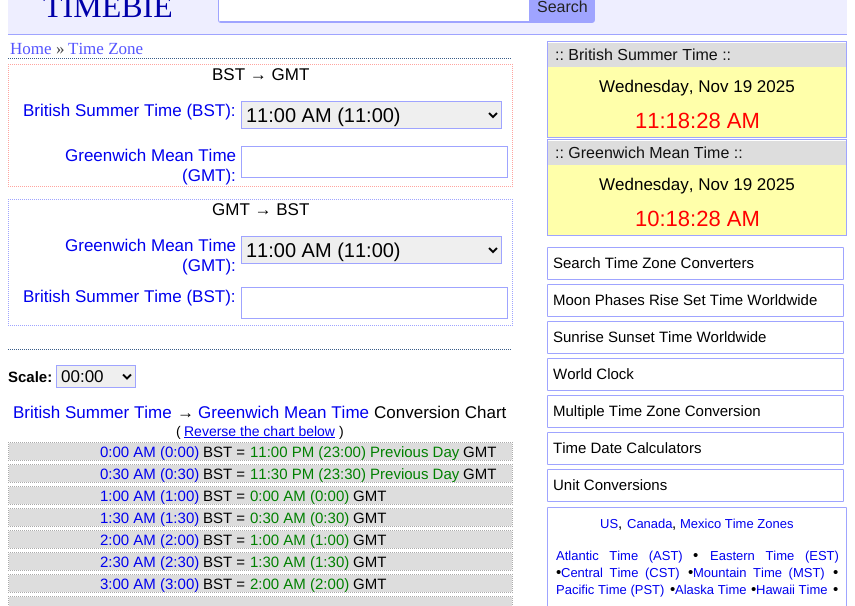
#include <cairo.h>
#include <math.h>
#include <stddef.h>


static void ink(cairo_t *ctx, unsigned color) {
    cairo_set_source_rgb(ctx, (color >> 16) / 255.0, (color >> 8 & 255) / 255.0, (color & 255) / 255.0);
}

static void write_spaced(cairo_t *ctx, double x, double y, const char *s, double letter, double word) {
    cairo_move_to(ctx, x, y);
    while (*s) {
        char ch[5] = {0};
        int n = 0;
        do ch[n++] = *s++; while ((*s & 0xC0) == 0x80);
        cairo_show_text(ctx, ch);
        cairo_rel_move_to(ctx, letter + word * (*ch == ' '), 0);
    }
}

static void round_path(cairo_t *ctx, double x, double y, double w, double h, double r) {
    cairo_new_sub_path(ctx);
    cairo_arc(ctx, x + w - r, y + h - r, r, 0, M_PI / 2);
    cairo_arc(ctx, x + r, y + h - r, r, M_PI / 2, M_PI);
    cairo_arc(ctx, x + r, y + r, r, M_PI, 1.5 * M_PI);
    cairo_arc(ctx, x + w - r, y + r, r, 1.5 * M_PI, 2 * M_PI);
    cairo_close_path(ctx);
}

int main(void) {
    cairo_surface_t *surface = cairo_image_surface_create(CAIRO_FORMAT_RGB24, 855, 606);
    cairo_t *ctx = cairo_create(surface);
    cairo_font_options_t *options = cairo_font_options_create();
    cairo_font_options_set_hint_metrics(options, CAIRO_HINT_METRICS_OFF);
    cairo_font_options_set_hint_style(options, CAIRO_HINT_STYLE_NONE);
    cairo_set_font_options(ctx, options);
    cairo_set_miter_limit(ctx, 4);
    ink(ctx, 0xFFFFFF);
    cairo_paint(ctx);
    ink(ctx, 0xEEEEFF);
    cairo_rectangle(ctx, 8, 0, 839, 34);
    cairo_fill(ctx);
    ink(ctx, 0x9FA4FF);
    cairo_rectangle(ctx, 8, 34, 839, 1);
    cairo_fill(ctx);
    cairo_select_font_face(ctx, "Liberation Serif", CAIRO_FONT_SLANT_NORMAL, CAIRO_FONT_WEIGHT_NORMAL);
    cairo_set_font_size(ctx, 32);
    ink(ctx, 0x0000AA);
    cairo_move_to(ctx, 43, 17);
    cairo_show_text(ctx, "TIMEBIE");
    ink(ctx, 0xFFFFFF);
    cairo_new_path(ctx);
    cairo_move_to(ctx, 221, -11);
    cairo_line_to(ctx, 529, -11);
    cairo_line_to(ctx, 529, 21);
    cairo_line_to(ctx, 220, 21);
    cairo_line_to(ctx, 219, 20);
    cairo_line_to(ctx, 219, -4);
    cairo_curve_to(ctx, 219, -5, 218, -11, 221, -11);
    cairo_close_path(ctx);
    cairo_fill(ctx);
    cairo_new_path(ctx);
    cairo_move_to(ctx, 221, -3.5);
    cairo_line_to(ctx, 529.5, -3.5);
    cairo_line_to(ctx, 529.5, 22.5);
    cairo_line_to(ctx, 221, 22.5);
    cairo_curve_to(ctx, 219.5, 22.5, 218.5, 21.5, 218.5, 20);
    cairo_line_to(ctx, 218.5, -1);
    cairo_curve_to(ctx, 218.5, -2.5, 219.5, -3.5, 221, -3.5);
    cairo_close_path(ctx);
    ink(ctx, 0x9FA4FF);
    cairo_set_line_width(ctx, 1);
    cairo_stroke(ctx);
    cairo_rectangle(ctx, 220, 21, 310, 1);
    cairo_fill(ctx);
    cairo_new_path(ctx);
    cairo_move_to(ctx, 530, -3);
    cairo_line_to(ctx, 592, -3);
    cairo_curve_to(ctx, 593.5, -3, 595, -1.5, 595, 0);
    cairo_line_to(ctx, 595, 20);
    cairo_curve_to(ctx, 595, 21.5, 593.5, 23, 592, 23);
    cairo_line_to(ctx, 530, 23);
    cairo_close_path(ctx);
    cairo_fill(ctx);
    cairo_select_font_face(ctx, "Liberation Sans", CAIRO_FONT_SLANT_NORMAL, CAIRO_FONT_WEIGHT_NORMAL);
    cairo_set_font_size(ctx, 16);
    ink(ctx, 0x222222);
    cairo_move_to(ctx, 537, 12);
    cairo_show_text(ctx, "Search");
    cairo_new_path(ctx);
    cairo_move_to(ctx, 8, 58.5);
    cairo_line_to(ctx, 511, 58.5);
    ink(ctx, 0x385B88);
    cairo_set_dash(ctx, (double[]){1, 1}, 2, 0);
    cairo_stroke(ctx);
    cairo_select_font_face(ctx, "Liberation Serif", CAIRO_FONT_SLANT_NORMAL, CAIRO_FONT_WEIGHT_NORMAL);
    cairo_set_font_size(ctx, 17);
    ink(ctx, 0x5555FF);
    cairo_move_to(ctx, 10, 54);
    cairo_show_text(ctx, "Home");
    ink(ctx, 0x444444);
    cairo_move_to(ctx, 56, 54);
    cairo_show_text(ctx, "»");
    ink(ctx, 0x5555FF);
    cairo_move_to(ctx, 68, 54);
    cairo_show_text(ctx, "Time Zone");
    cairo_new_path(ctx);
    cairo_move_to(ctx, 8, 64.5);
    cairo_line_to(ctx, 513, 64.5);
    ink(ctx, 0xFFA49F);
    cairo_stroke(ctx);
    cairo_new_path(ctx);
    cairo_move_to(ctx, 512.5, 64);
    cairo_line_to(ctx, 512.5, 187);
    cairo_stroke(ctx);
    cairo_new_path(ctx);
    cairo_move_to(ctx, 8, 186.5);
    cairo_line_to(ctx, 513, 186.5);
    cairo_stroke(ctx);
    cairo_new_path(ctx);
    cairo_move_to(ctx, 8.5, 64);
    cairo_line_to(ctx, 8.5, 187);
    cairo_stroke(ctx);
    cairo_select_font_face(ctx, "Liberation Sans", CAIRO_FONT_SLANT_NORMAL, CAIRO_FONT_WEIGHT_NORMAL);
    ink(ctx, 0x000000);
    cairo_move_to(ctx, 212, 80);
    cairo_show_text(ctx, "BST → GMT");
    ink(ctx, 0x0000EE);
    cairo_move_to(ctx, 23, 116);
    cairo_show_text(ctx, "British Summer Time (BST):");
    ink(ctx, 0xEFEFEF);
    cairo_rectangle(ctx, 241.5, 101.5, 260, 27);
    cairo_fill_preserve(ctx);
    ink(ctx, 0x9FA4FF);
    cairo_set_dash(ctx, NULL, 0, 0);
    cairo_stroke(ctx);
    cairo_new_path(ctx);
    cairo_move_to(ctx, 489, 113);
    cairo_line_to(ctx, 493, 117);
    cairo_line_to(ctx, 497, 113);
    ink(ctx, 0x000000);
    cairo_set_line_width(ctx, 2);
    cairo_stroke(ctx);
    cairo_set_font_size(ctx, 20);
    cairo_move_to(ctx, 246, 122);
    cairo_show_text(ctx, "11:00 AM (11:00)");
    cairo_set_font_size(ctx, 17);
    ink(ctx, 0x0000EE);
    cairo_move_to(ctx, 65, 161);
    cairo_show_text(ctx, "Greenwich Mean Time");
    cairo_move_to(ctx, 182, 181);
    cairo_show_text(ctx, "(GMT):");
    cairo_rectangle(ctx, 241.5, 146.5, 266, 31);
    ink(ctx, 0x9FA4FF);
    cairo_set_line_width(ctx, 1);
    cairo_stroke(ctx);
    cairo_new_path(ctx);
    cairo_move_to(ctx, 8, 199.5);
    cairo_line_to(ctx, 513, 199.5);
    cairo_set_dash(ctx, (double[]){1, 1}, 2, 0);
    cairo_stroke(ctx);
    cairo_new_path(ctx);
    cairo_move_to(ctx, 512.5, 199);
    cairo_line_to(ctx, 512.5, 326);
    cairo_stroke(ctx);
    cairo_new_path(ctx);
    cairo_move_to(ctx, 8, 325.5);
    cairo_line_to(ctx, 513, 325.5);
    cairo_stroke(ctx);
    cairo_new_path(ctx);
    cairo_move_to(ctx, 8.5, 199);
    cairo_line_to(ctx, 8.5, 326);
    cairo_stroke(ctx);
    ink(ctx, 0x000000);
    cairo_move_to(ctx, 212, 215);
    cairo_show_text(ctx, "GMT → BST");
    ink(ctx, 0x0000EE);
    cairo_move_to(ctx, 65, 251);
    cairo_show_text(ctx, "Greenwich Mean Time");
    cairo_move_to(ctx, 182, 271);
    cairo_show_text(ctx, "(GMT):");
    ink(ctx, 0xEFEFEF);
    cairo_rectangle(ctx, 241.5, 236.5, 260, 27);
    cairo_fill_preserve(ctx);
    ink(ctx, 0x9FA4FF);
    cairo_set_dash(ctx, NULL, 0, 0);
    cairo_stroke(ctx);
    cairo_new_path(ctx);
    cairo_move_to(ctx, 489, 248);
    cairo_line_to(ctx, 493, 252);
    cairo_line_to(ctx, 497, 248);
    ink(ctx, 0x000000);
    cairo_set_line_width(ctx, 2);
    cairo_stroke(ctx);
    cairo_set_font_size(ctx, 20);
    cairo_move_to(ctx, 246, 257);
    cairo_show_text(ctx, "11:00 AM (11:00)");
    cairo_set_font_size(ctx, 17);
    ink(ctx, 0x0000EE);
    cairo_move_to(ctx, 23, 302);
    cairo_show_text(ctx, "British Summer Time (BST):");
    cairo_rectangle(ctx, 241.5, 287.5, 266, 31);
    ink(ctx, 0x9FA4FF);
    cairo_set_line_width(ctx, 1);
    cairo_stroke(ctx);
    cairo_new_path(ctx);
    cairo_move_to(ctx, 8, 349.5);
    cairo_line_to(ctx, 511, 349.5);
    ink(ctx, 0x385B88);
    cairo_set_dash(ctx, (double[]){1, 1}, 2, 0);
    cairo_stroke(ctx);
    cairo_select_font_face(ctx, "Liberation Sans", CAIRO_FONT_SLANT_NORMAL, CAIRO_FONT_WEIGHT_BOLD);
    cairo_set_font_size(ctx, 15);
    ink(ctx, 0x000000);
    cairo_move_to(ctx, 8, 382);
    cairo_show_text(ctx, "Scale:");
    ink(ctx, 0xEFEFEF);
    cairo_rectangle(ctx, 56.5, 365.5, 79, 22);
    cairo_fill_preserve(ctx);
    ink(ctx, 0x9FA4FF);
    cairo_set_dash(ctx, NULL, 0, 0);
    cairo_stroke(ctx);
    cairo_new_path(ctx);
    cairo_move_to(ctx, 123, 374.5);
    cairo_line_to(ctx, 127, 378.5);
    cairo_line_to(ctx, 131, 374.5);
    ink(ctx, 0x000000);
    cairo_set_line_width(ctx, 2);
    cairo_stroke(ctx);
    cairo_select_font_face(ctx, "Liberation Sans", CAIRO_FONT_SLANT_NORMAL, CAIRO_FONT_WEIGHT_NORMAL);
    cairo_set_font_size(ctx, 17);
    cairo_move_to(ctx, 61, 382);
    cairo_show_text(ctx, "00:00");
    ink(ctx, 0x0000EE);
    cairo_move_to(ctx, 13, 418);
    cairo_show_text(ctx, "British Summer Time");
    ink(ctx, 0x000000);
    cairo_move_to(ctx, 177, 418);
    cairo_show_text(ctx, "→");
    ink(ctx, 0x0000EE);
    cairo_move_to(ctx, 198, 418);
    cairo_show_text(ctx, "Greenwich Mean Time");
    ink(ctx, 0x000000);
    cairo_move_to(ctx, 374, 418);
    cairo_show_text(ctx, "Conversion Chart");
    cairo_set_font_size(ctx, 14);
    cairo_move_to(ctx, 176, 436);
    cairo_show_text(ctx, "(");
    ink(ctx, 0x0000EE);
    cairo_move_to(ctx, 184, 436);
    cairo_show_text(ctx, "Reverse the chart below");
    cairo_rectangle(ctx, 184, 437, 151, 1);
    cairo_fill(ctx);
    ink(ctx, 0x000000);
    cairo_move_to(ctx, 339, 436);
    cairo_show_text(ctx, ")");
    cairo_new_path(ctx);
    cairo_move_to(ctx, 8, 442.5);
    cairo_line_to(ctx, 513, 442.5);
    ink(ctx, 0xAAAAAA);
    cairo_set_line_width(ctx, 1);
    cairo_set_dash(ctx, (double[]){1, 1}, 2, 0);
    cairo_stroke(ctx);
    cairo_new_path(ctx);
    cairo_move_to(ctx, 512.5, 442);
    cairo_line_to(ctx, 512.5, 461);
    cairo_stroke(ctx);
    cairo_new_path(ctx);
    cairo_move_to(ctx, 8, 460.5);
    cairo_line_to(ctx, 513, 460.5);
    cairo_stroke(ctx);
    cairo_new_path(ctx);
    cairo_move_to(ctx, 8.5, 442);
    cairo_line_to(ctx, 8.5, 461);
    cairo_stroke(ctx);
    ink(ctx, 0xDDDDDD);
    cairo_rectangle(ctx, 9, 443, 503, 17);
    cairo_fill(ctx);
    cairo_save(ctx);
    cairo_rectangle(ctx, 9, 443, 503, 17);
    cairo_clip(ctx);
    cairo_set_font_size(ctx, 15);
    ink(ctx, 0x0000EE);
    cairo_move_to(ctx, 100, 457);
    cairo_show_text(ctx, "0:00 AM (0:00)");
    cairo_restore(ctx);
    cairo_set_font_size(ctx, 15);
    ink(ctx, 0x000000);
    cairo_move_to(ctx, 203, 457);
    cairo_show_text(ctx, "BST =");
    cairo_save(ctx);
    cairo_rectangle(ctx, 9, 443, 503, 17);
    cairo_clip(ctx);
    ink(ctx, 0x008000);
    cairo_move_to(ctx, 250, 457);
    cairo_show_text(ctx, "11:00 PM (23:00) Previous Day");
    cairo_restore(ctx);
    cairo_move_to(ctx, 463, 457);
    cairo_show_text(ctx, "GMT");
    cairo_new_path(ctx);
    cairo_move_to(ctx, 8, 464.5);
    cairo_line_to(ctx, 513, 464.5);
    ink(ctx, 0xAAAAAA);
    cairo_stroke(ctx);
    cairo_new_path(ctx);
    cairo_move_to(ctx, 512.5, 464);
    cairo_line_to(ctx, 512.5, 483);
    cairo_stroke(ctx);
    cairo_new_path(ctx);
    cairo_move_to(ctx, 8, 482.5);
    cairo_line_to(ctx, 513, 482.5);
    cairo_stroke(ctx);
    cairo_new_path(ctx);
    cairo_move_to(ctx, 8.5, 464);
    cairo_line_to(ctx, 8.5, 483);
    cairo_stroke(ctx);
    ink(ctx, 0xDDDDDD);
    cairo_rectangle(ctx, 9, 465, 503, 17);
    cairo_fill(ctx);
    cairo_save(ctx);
    cairo_rectangle(ctx, 9, 465, 503, 17);
    cairo_clip(ctx);
    ink(ctx, 0x0000EE);
    cairo_move_to(ctx, 100, 479);
    cairo_show_text(ctx, "0:30 AM (0:30)");
    cairo_restore(ctx);
    ink(ctx, 0x000000);
    cairo_move_to(ctx, 203, 479);
    cairo_show_text(ctx, "BST =");
    cairo_save(ctx);
    cairo_rectangle(ctx, 9, 465, 503, 17);
    cairo_clip(ctx);
    ink(ctx, 0x008000);
    cairo_move_to(ctx, 250, 479);
    cairo_show_text(ctx, "11:30 PM (23:30) Previous Day");
    cairo_restore(ctx);
    cairo_move_to(ctx, 463, 479);
    cairo_show_text(ctx, "GMT");
    cairo_new_path(ctx);
    cairo_move_to(ctx, 8, 486.5);
    cairo_line_to(ctx, 513, 486.5);
    ink(ctx, 0xAAAAAA);
    cairo_stroke(ctx);
    cairo_new_path(ctx);
    cairo_move_to(ctx, 512.5, 486);
    cairo_line_to(ctx, 512.5, 505);
    cairo_stroke(ctx);
    cairo_new_path(ctx);
    cairo_move_to(ctx, 8, 504.5);
    cairo_line_to(ctx, 513, 504.5);
    cairo_stroke(ctx);
    cairo_new_path(ctx);
    cairo_move_to(ctx, 8.5, 486);
    cairo_line_to(ctx, 8.5, 505);
    cairo_stroke(ctx);
    ink(ctx, 0xDDDDDD);
    cairo_rectangle(ctx, 9, 487, 503, 17);
    cairo_fill(ctx);
    cairo_save(ctx);
    cairo_rectangle(ctx, 9, 487, 503, 17);
    cairo_clip(ctx);
    ink(ctx, 0x0000EE);
    cairo_move_to(ctx, 100, 501);
    cairo_show_text(ctx, "1:00 AM (1:00)");
    cairo_restore(ctx);
    ink(ctx, 0x000000);
    cairo_move_to(ctx, 203, 501);
    cairo_show_text(ctx, "BST =");
    cairo_save(ctx);
    cairo_rectangle(ctx, 9, 487, 503, 17);
    cairo_clip(ctx);
    ink(ctx, 0x008000);
    cairo_move_to(ctx, 250, 501);
    cairo_show_text(ctx, "0:00 AM (0:00)");
    cairo_restore(ctx);
    cairo_move_to(ctx, 353, 501);
    cairo_show_text(ctx, "GMT");
    cairo_new_path(ctx);
    cairo_move_to(ctx, 8, 508.5);
    cairo_line_to(ctx, 513, 508.5);
    ink(ctx, 0xAAAAAA);
    cairo_stroke(ctx);
    cairo_new_path(ctx);
    cairo_move_to(ctx, 512.5, 508);
    cairo_line_to(ctx, 512.5, 527);
    cairo_stroke(ctx);
    cairo_new_path(ctx);
    cairo_move_to(ctx, 8, 526.5);
    cairo_line_to(ctx, 513, 526.5);
    cairo_stroke(ctx);
    cairo_new_path(ctx);
    cairo_move_to(ctx, 8.5, 508);
    cairo_line_to(ctx, 8.5, 527);
    cairo_stroke(ctx);
    ink(ctx, 0xDDDDDD);
    cairo_rectangle(ctx, 9, 509, 503, 17);
    cairo_fill(ctx);
    cairo_save(ctx);
    cairo_rectangle(ctx, 9, 509, 503, 17);
    cairo_clip(ctx);
    ink(ctx, 0x0000EE);
    cairo_move_to(ctx, 100, 523);
    cairo_show_text(ctx, "1:30 AM (1:30)");
    cairo_restore(ctx);
    ink(ctx, 0x000000);
    cairo_move_to(ctx, 203, 523);
    cairo_show_text(ctx, "BST =");
    cairo_save(ctx);
    cairo_rectangle(ctx, 9, 509, 503, 17);
    cairo_clip(ctx);
    ink(ctx, 0x008000);
    cairo_move_to(ctx, 250, 523);
    cairo_show_text(ctx, "0:30 AM (0:30)");
    cairo_restore(ctx);
    cairo_move_to(ctx, 353, 523);
    cairo_show_text(ctx, "GMT");
    cairo_new_path(ctx);
    cairo_move_to(ctx, 8, 530.5);
    cairo_line_to(ctx, 513, 530.5);
    ink(ctx, 0xAAAAAA);
    cairo_stroke(ctx);
    cairo_new_path(ctx);
    cairo_move_to(ctx, 512.5, 530);
    cairo_line_to(ctx, 512.5, 549);
    cairo_stroke(ctx);
    cairo_new_path(ctx);
    cairo_move_to(ctx, 8, 548.5);
    cairo_line_to(ctx, 513, 548.5);
    cairo_stroke(ctx);
    cairo_new_path(ctx);
    cairo_move_to(ctx, 8.5, 530);
    cairo_line_to(ctx, 8.5, 549);
    cairo_stroke(ctx);
    ink(ctx, 0xDDDDDD);
    cairo_rectangle(ctx, 9, 531, 503, 17);
    cairo_fill(ctx);
    cairo_save(ctx);
    cairo_rectangle(ctx, 9, 531, 503, 17);
    cairo_clip(ctx);
    ink(ctx, 0x0000EE);
    cairo_move_to(ctx, 100, 545);
    cairo_show_text(ctx, "2:00 AM (2:00)");
    cairo_restore(ctx);
    ink(ctx, 0x000000);
    cairo_move_to(ctx, 203, 545);
    cairo_show_text(ctx, "BST =");
    cairo_save(ctx);
    cairo_rectangle(ctx, 9, 531, 503, 17);
    cairo_clip(ctx);
    ink(ctx, 0x008000);
    cairo_move_to(ctx, 250, 545);
    cairo_show_text(ctx, "1:00 AM (1:00)");
    cairo_restore(ctx);
    cairo_move_to(ctx, 353, 545);
    cairo_show_text(ctx, "GMT");
    cairo_new_path(ctx);
    cairo_move_to(ctx, 8, 552.5);
    cairo_line_to(ctx, 513, 552.5);
    ink(ctx, 0xAAAAAA);
    cairo_stroke(ctx);
    cairo_new_path(ctx);
    cairo_move_to(ctx, 512.5, 552);
    cairo_line_to(ctx, 512.5, 571);
    cairo_stroke(ctx);
    cairo_new_path(ctx);
    cairo_move_to(ctx, 8, 570.5);
    cairo_line_to(ctx, 513, 570.5);
    cairo_stroke(ctx);
    cairo_new_path(ctx);
    cairo_move_to(ctx, 8.5, 552);
    cairo_line_to(ctx, 8.5, 571);
    cairo_stroke(ctx);
    ink(ctx, 0xDDDDDD);
    cairo_rectangle(ctx, 9, 553, 503, 17);
    cairo_fill(ctx);
    cairo_save(ctx);
    cairo_rectangle(ctx, 9, 553, 503, 17);
    cairo_clip(ctx);
    ink(ctx, 0x0000EE);
    cairo_move_to(ctx, 100, 567);
    cairo_show_text(ctx, "2:30 AM (2:30)");
    cairo_restore(ctx);
    ink(ctx, 0x000000);
    cairo_move_to(ctx, 203, 567);
    cairo_show_text(ctx, "BST =");
    cairo_save(ctx);
    cairo_rectangle(ctx, 9, 553, 503, 17);
    cairo_clip(ctx);
    ink(ctx, 0x008000);
    cairo_move_to(ctx, 250, 567);
    cairo_show_text(ctx, "1:30 AM (1:30)");
    cairo_restore(ctx);
    cairo_move_to(ctx, 353, 567);
    cairo_show_text(ctx, "GMT");
    cairo_new_path(ctx);
    cairo_move_to(ctx, 8, 574.5);
    cairo_line_to(ctx, 513, 574.5);
    ink(ctx, 0xAAAAAA);
    cairo_stroke(ctx);
    cairo_new_path(ctx);
    cairo_move_to(ctx, 512.5, 574);
    cairo_line_to(ctx, 512.5, 593);
    cairo_stroke(ctx);
    cairo_new_path(ctx);
    cairo_move_to(ctx, 8, 592.5);
    cairo_line_to(ctx, 513, 592.5);
    cairo_stroke(ctx);
    cairo_new_path(ctx);
    cairo_move_to(ctx, 8.5, 574);
    cairo_line_to(ctx, 8.5, 593);
    cairo_stroke(ctx);
    ink(ctx, 0xDDDDDD);
    cairo_rectangle(ctx, 9, 575, 503, 17);
    cairo_fill(ctx);
    cairo_save(ctx);
    cairo_rectangle(ctx, 9, 575, 503, 17);
    cairo_clip(ctx);
    ink(ctx, 0x0000EE);
    cairo_move_to(ctx, 100, 589);
    cairo_show_text(ctx, "3:00 AM (3:00)");
    cairo_restore(ctx);
    ink(ctx, 0x000000);
    cairo_move_to(ctx, 203, 589);
    cairo_show_text(ctx, "BST =");
    cairo_save(ctx);
    cairo_rectangle(ctx, 9, 575, 503, 17);
    cairo_clip(ctx);
    ink(ctx, 0x008000);
    cairo_move_to(ctx, 250, 589);
    cairo_show_text(ctx, "2:00 AM (2:00)");
    cairo_restore(ctx);
    cairo_move_to(ctx, 353, 589);
    cairo_show_text(ctx, "GMT");
    cairo_new_path(ctx);
    cairo_move_to(ctx, 8, 596.5);
    cairo_line_to(ctx, 513, 596.5);
    ink(ctx, 0xAAAAAA);
    cairo_stroke(ctx);
    cairo_new_path(ctx);
    cairo_move_to(ctx, 512.5, 596);
    cairo_line_to(ctx, 512.5, 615);
    cairo_stroke(ctx);
    cairo_new_path(ctx);
    cairo_move_to(ctx, 8.5, 596);
    cairo_line_to(ctx, 8.5, 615);
    cairo_stroke(ctx);
    ink(ctx, 0xDDDDDD);
    cairo_rectangle(ctx, 9, 597, 503, 9);
    cairo_fill(ctx);
    cairo_rectangle(ctx, 547.5, 41.5, 299, 96);
    ink(ctx, 0x9FA4FF);
    cairo_set_dash(ctx, NULL, 0, 0);
    cairo_stroke(ctx);
    ink(ctx, 0xDDDDDD);
    cairo_rectangle(ctx, 548, 43, 298, 24);
    cairo_fill(ctx);
    cairo_set_font_size(ctx, 16);
    ink(ctx, 0x111111);
    cairo_move_to(ctx, 555, 60);
    cairo_show_text(ctx, ":: British Summer Time ::");
    ink(ctx, 0xFFFFAA);
    cairo_rectangle(ctx, 548, 67, 298, 70);
    cairo_fill(ctx);
    cairo_set_font_size(ctx, 17);
    ink(ctx, 0x000000);
    cairo_move_to(ctx, 599, 92);
    cairo_show_text(ctx, "Wednesday, Nov 19 2025");
    cairo_set_font_size(ctx, 22);
    ink(ctx, 0xFF0000);
    cairo_move_to(ctx, 635, 128);
    cairo_show_text(ctx, "11:18:28 AM");
    cairo_rectangle(ctx, 547.5, 139.5, 299, 96);
    ink(ctx, 0x9FA4FF);
    cairo_stroke(ctx);
    ink(ctx, 0xDDDDDD);
    cairo_rectangle(ctx, 548, 141, 298, 24);
    cairo_fill(ctx);
    cairo_set_font_size(ctx, 16);
    ink(ctx, 0x111111);
    cairo_move_to(ctx, 555, 158);
    cairo_show_text(ctx, ":: Greenwich Mean Time ::");
    ink(ctx, 0xFFFFAA);
    cairo_rectangle(ctx, 548, 165, 298, 70);
    cairo_fill(ctx);
    cairo_set_font_size(ctx, 17);
    ink(ctx, 0x000000);
    cairo_move_to(ctx, 599, 190);
    cairo_show_text(ctx, "Wednesday, Nov 19 2025");
    cairo_set_font_size(ctx, 22);
    ink(ctx, 0xFF0000);
    cairo_move_to(ctx, 635, 226);
    cairo_show_text(ctx, "10:18:28 AM");
    round_path(ctx, 547.5, 247.5, 296, 32, 0.5);
    ink(ctx, 0x9FA4FF);
    cairo_stroke(ctx);
    cairo_set_font_size(ctx, 15);
    ink(ctx, 0x000000);
    cairo_move_to(ctx, 553, 268);
    cairo_show_text(ctx, "Search Time Zone Converters");
    round_path(ctx, 547.5, 284.5, 296, 32, 0.5);
    ink(ctx, 0x9FA4FF);
    cairo_stroke(ctx);
    ink(ctx, 0x000000);
    cairo_move_to(ctx, 553, 305);
    cairo_show_text(ctx, "Moon Phases Rise Set Time Worldwide");
    round_path(ctx, 547.5, 321.5, 296, 32, 0.5);
    ink(ctx, 0x9FA4FF);
    cairo_stroke(ctx);
    ink(ctx, 0x000000);
    cairo_move_to(ctx, 553, 342);
    cairo_show_text(ctx, "Sunrise Sunset Time Worldwide");
    round_path(ctx, 547.5, 358.5, 296, 32, 0.5);
    ink(ctx, 0x9FA4FF);
    cairo_stroke(ctx);
    ink(ctx, 0x000000);
    cairo_move_to(ctx, 553, 379);
    cairo_show_text(ctx, "World Clock");
    round_path(ctx, 547.5, 395.5, 296, 32, 0.5);
    ink(ctx, 0x9FA4FF);
    cairo_stroke(ctx);
    ink(ctx, 0x000000);
    cairo_move_to(ctx, 553, 416);
    cairo_show_text(ctx, "Multiple Time Zone Conversion");
    round_path(ctx, 547.5, 432.5, 296, 32, 0.5);
    ink(ctx, 0x9FA4FF);
    cairo_stroke(ctx);
    ink(ctx, 0x000000);
    cairo_move_to(ctx, 553, 453);
    cairo_show_text(ctx, "Time Date Calculators");
    round_path(ctx, 547.5, 469.5, 296, 32, 0.5);
    ink(ctx, 0x9FA4FF);
    cairo_stroke(ctx);
    ink(ctx, 0x000000);
    cairo_move_to(ctx, 553, 490);
    cairo_show_text(ctx, "Unit Conversions");
    round_path(ctx, 547.5, 507.5, 299, 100, 0.5);
    ink(ctx, 0x9FA4FF);
    cairo_stroke(ctx);
    cairo_set_font_size(ctx, 13);
    ink(ctx, 0x0000EE);
    cairo_move_to(ctx, 600, 528);
    cairo_show_text(ctx, "US");
    cairo_set_font_size(ctx, 15);
    ink(ctx, 0x000000);
    cairo_move_to(ctx, 618, 528);
    cairo_show_text(ctx, ",");
    cairo_set_font_size(ctx, 13);
    ink(ctx, 0x0000EE);
    cairo_move_to(ctx, 627, 528);
    cairo_show_text(ctx, "Canada");
    cairo_set_font_size(ctx, 15);
    ink(ctx, 0x000000);
    cairo_move_to(ctx, 672, 528);
    cairo_show_text(ctx, ",");
    cairo_set_font_size(ctx, 13);
    ink(ctx, 0x0000EE);
    cairo_move_to(ctx, 680, 528);
    cairo_show_text(ctx, "Mexico Time Zones");
    write_spaced(ctx, 556, 560, "Atlantic Time (AST)", 0, 7);
    cairo_set_font_size(ctx, 15);
    ink(ctx, 0x000000);
    cairo_move_to(ctx, 693, 560);
    cairo_show_text(ctx, "•");
    cairo_set_font_size(ctx, 13);
    ink(ctx, 0x0000EE);
    write_spaced(ctx, 710, 560, "Eastern Time (EST)", 0, 7);
    cairo_set_font_size(ctx, 15);
    ink(ctx, 0x000000);
    cairo_move_to(ctx, 556, 577);
    cairo_show_text(ctx, "•");
    cairo_set_font_size(ctx, 13);
    ink(ctx, 0x0000EE);
    write_spaced(ctx, 561, 577, "Central Time (CST)", 0, 3);
    cairo_set_font_size(ctx, 15);
    ink(ctx, 0x000000);
    cairo_move_to(ctx, 688, 577);
    cairo_show_text(ctx, "•");
    cairo_set_font_size(ctx, 13);
    ink(ctx, 0x0000EE);
    write_spaced(ctx, 693, 577, "Mountain Time (MST)", 0, 3);
    cairo_set_font_size(ctx, 15);
    ink(ctx, 0x000000);
    cairo_move_to(ctx, 833, 577);
    cairo_show_text(ctx, "•");
    cairo_set_font_size(ctx, 13);
    ink(ctx, 0x0000EE);
    cairo_move_to(ctx, 556, 594);
    cairo_show_text(ctx, "Pacific Time (PST)");
    cairo_set_font_size(ctx, 15);
    ink(ctx, 0x000000);
    cairo_move_to(ctx, 670, 594);
    cairo_show_text(ctx, "•");
    cairo_set_font_size(ctx, 13);
    ink(ctx, 0x0000EE);
    cairo_move_to(ctx, 675, 594);
    cairo_show_text(ctx, "Alaska Time");
    cairo_set_font_size(ctx, 15);
    ink(ctx, 0x000000);
    cairo_move_to(ctx, 751, 594);
    cairo_show_text(ctx, "•");
    cairo_set_font_size(ctx, 13);
    ink(ctx, 0x0000EE);
    cairo_move_to(ctx, 756, 594);
    cairo_show_text(ctx, "Hawaii Time");
    cairo_set_font_size(ctx, 15);
    ink(ctx, 0x000000);
    cairo_move_to(ctx, 833, 594);
    cairo_show_text(ctx, "•");
    cairo_surface_write_to_png(surface, "image.png");
    cairo_font_options_destroy(options);
    cairo_destroy(ctx);
    cairo_surface_destroy(surface);
    return 0;
}
